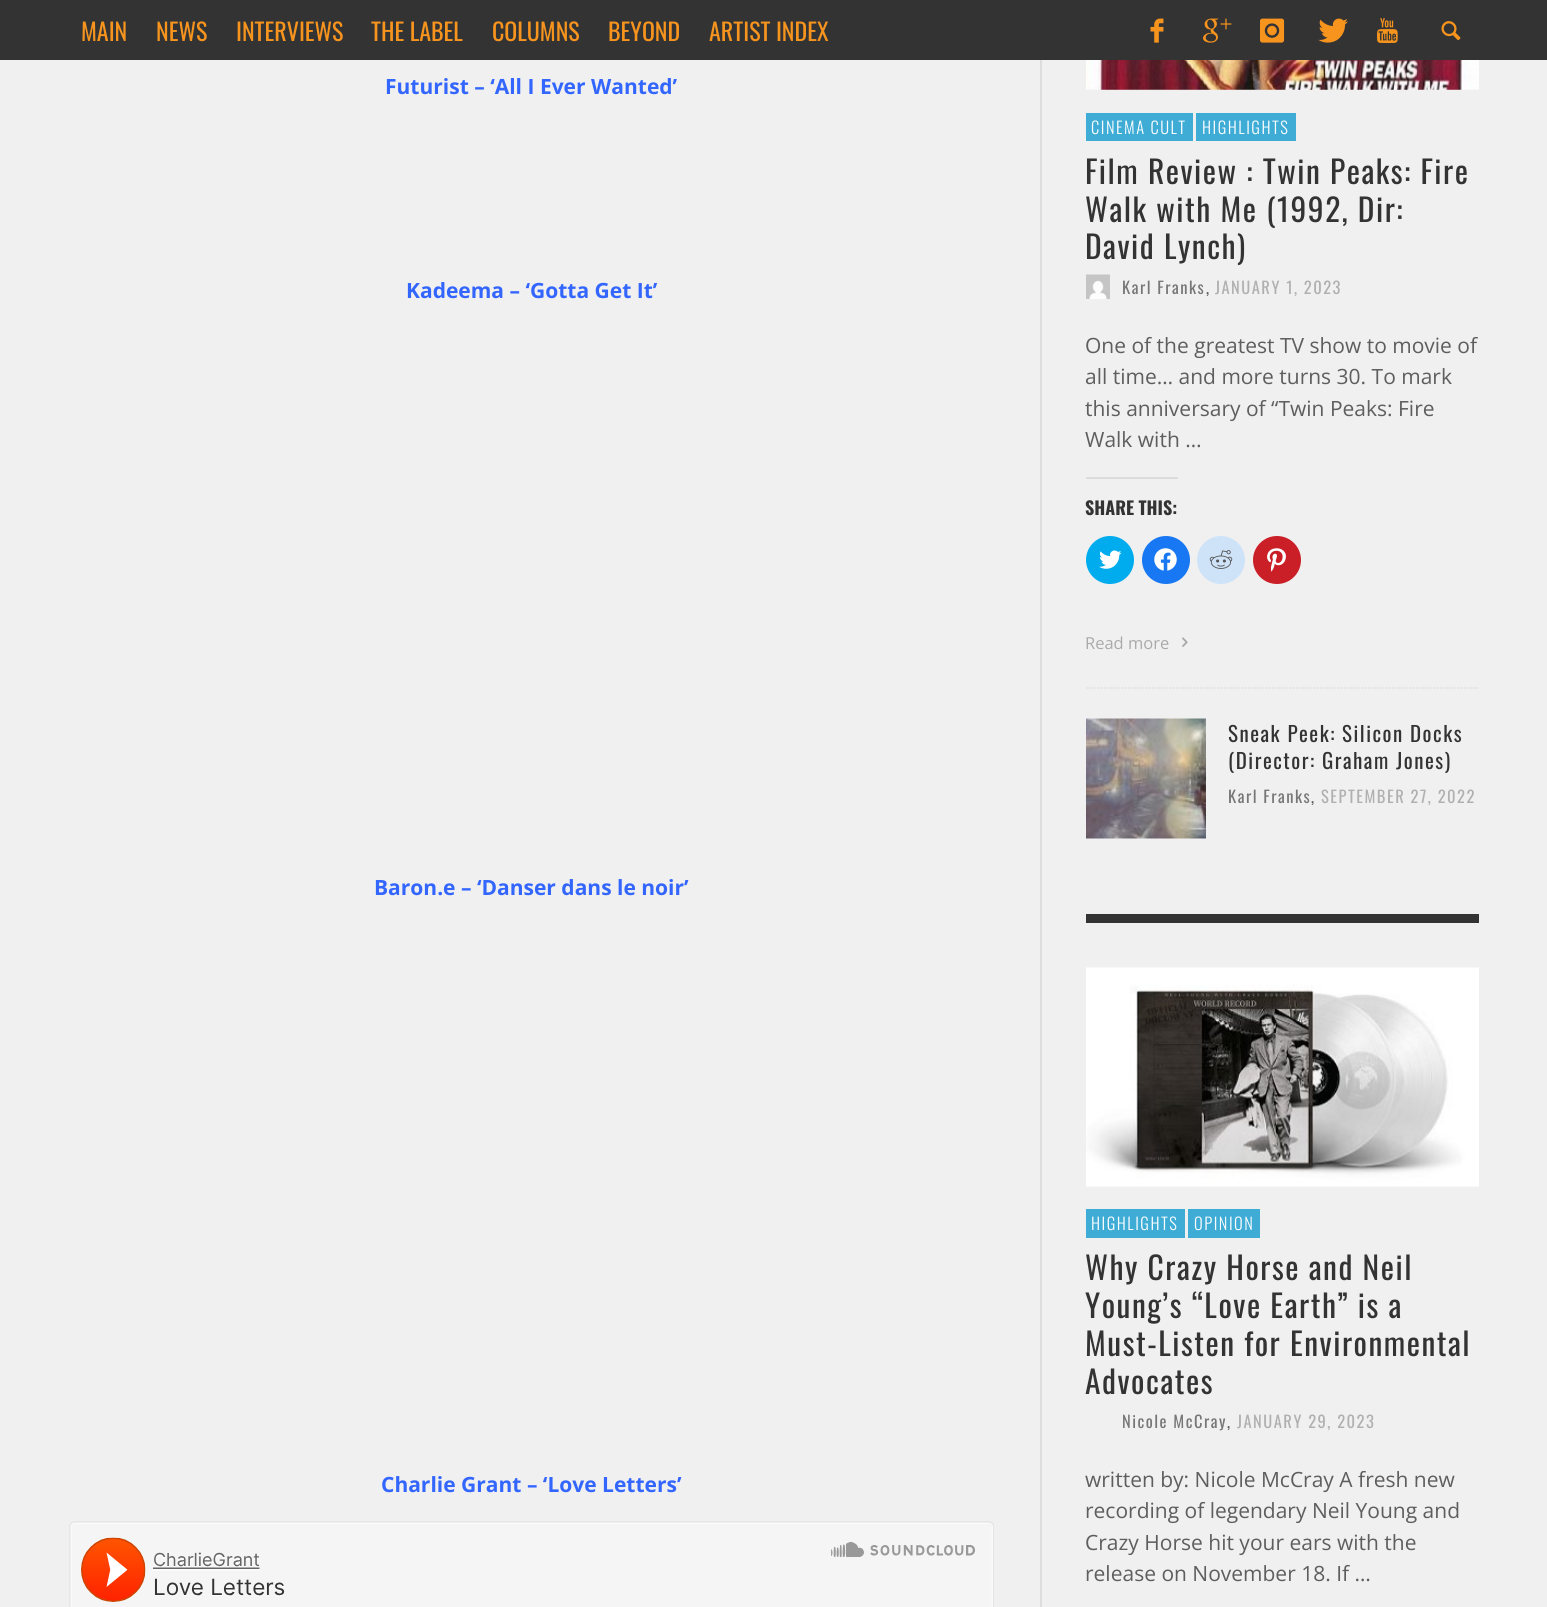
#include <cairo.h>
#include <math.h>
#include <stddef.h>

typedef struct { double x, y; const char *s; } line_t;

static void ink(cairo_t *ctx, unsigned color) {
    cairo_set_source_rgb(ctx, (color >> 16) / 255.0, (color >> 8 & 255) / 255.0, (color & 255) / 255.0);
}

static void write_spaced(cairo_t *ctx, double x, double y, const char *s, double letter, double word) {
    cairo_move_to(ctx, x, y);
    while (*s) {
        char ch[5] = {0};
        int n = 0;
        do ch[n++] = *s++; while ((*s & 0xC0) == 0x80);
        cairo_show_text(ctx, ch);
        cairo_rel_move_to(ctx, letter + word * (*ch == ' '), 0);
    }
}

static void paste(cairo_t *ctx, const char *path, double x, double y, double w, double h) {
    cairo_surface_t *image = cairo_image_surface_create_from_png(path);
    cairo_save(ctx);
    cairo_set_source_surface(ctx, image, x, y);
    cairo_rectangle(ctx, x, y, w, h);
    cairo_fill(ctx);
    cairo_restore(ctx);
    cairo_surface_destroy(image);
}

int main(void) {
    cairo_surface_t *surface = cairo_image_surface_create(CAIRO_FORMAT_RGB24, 1547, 1607);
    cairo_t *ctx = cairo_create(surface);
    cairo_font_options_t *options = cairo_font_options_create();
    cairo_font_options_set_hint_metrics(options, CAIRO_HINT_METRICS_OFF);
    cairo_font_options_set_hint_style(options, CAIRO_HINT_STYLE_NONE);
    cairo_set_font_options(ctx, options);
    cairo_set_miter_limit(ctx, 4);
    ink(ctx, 0xF0F0F0);
    cairo_paint(ctx);
    ink(ctx, 0x333333);
    cairo_rectangle(ctx, 0, 0, 1547, 60);
    cairo_fill(ctx);
    cairo_select_font_face(ctx, "Oswald", CAIRO_FONT_SLANT_NORMAL, CAIRO_FONT_WEIGHT_NORMAL);
    cairo_set_font_size(ctx, 24);
    ink(ctx, 0xF7941E);
    {
        static const line_t items[] = {
            {81, 41, "MAIN"},
            {156, 41, "NEWS"},
            {236, 41, "INTERVIEWS"},
            {371, 41, "THE LABEL"},
            {492, 41, "COLUMNS"},
            {608, 41, "BEYOND"},
            {709, 41, "ARTIST INDEX"},
        };
        for (size_t i = 0; i < sizeof items / sizeof *items; i++) {
            cairo_move_to(ctx, items[i].x, items[i].y);
            cairo_show_text(ctx, items[i].s);
        }
    }
    paste(ctx, "media/1.png", 1150, 18, 14, 25);
    paste(ctx, "media/2.png", 1203, 18, 29, 25);
    paste(ctx, "media/3.png", 1260, 18, 25, 25);
    paste(ctx, "media/4.png", 1318, 18, 30, 25);
    paste(ctx, "media/5.png", 1377, 18, 21, 25);
    paste(ctx, "media/6.png", 1441, 21, 20, 20);
    cairo_select_font_face(ctx, "Open Sans", CAIRO_FONT_SLANT_NORMAL, CAIRO_FONT_WEIGHT_BOLD);
    cairo_set_font_size(ctx, 21);
    ink(ctx, 0x3366FF);
    {
        static const line_t items[] = {
            {385, 94, "Futurist – ‘All I Ever Wanted’"},
            {406, 298, "Kadeema – ‘Gotta Get It’"},
            {374, 895, "Baron.e – ‘Danser dans le noir’"},
            {381, 1492, "Charlie Grant – ‘Love Letters’"},
        };
        for (size_t i = 0; i < sizeof items / sizeof *items; i++) {
            cairo_move_to(ctx, items[i].x, items[i].y);
            cairo_show_text(ctx, items[i].s);
        }
    }
    paste(ctx, "media/7.png", 69, 1521, 925, 86);
    ink(ctx, 0xDDDDDD);
    cairo_rectangle(ctx, 1040, 60, 2, 1547);
    cairo_fill(ctx);
    cairo_new_path(ctx);
    cairo_move_to(ctx, 1086, 688);
    cairo_line_to(ctx, 1479, 688);
    cairo_set_line_width(ctx, 1.5);
    cairo_set_dash(ctx, (double[]){1.5, 1.5}, 2, 0);
    cairo_stroke(ctx);
    paste(ctx, "media/8.png", 1086, 60, 393, 30);
    ink(ctx, 0x3FACD6);
    cairo_rectangle(ctx, 1086, 113, 107, 28);
    cairo_fill(ctx);
    cairo_select_font_face(ctx, "Oswald Light", CAIRO_FONT_SLANT_NORMAL, CAIRO_FONT_WEIGHT_NORMAL);
    cairo_set_font_size(ctx, 16.5);
    ink(ctx, 0xFFFFFF);
    write_spaced(ctx, 1091, 134, "CINEMA CULT", 1.5, 0);
    ink(ctx, 0x3FACD6);
    cairo_rectangle(ctx, 1196, 113, 100, 28);
    cairo_fill(ctx);
    ink(ctx, 0xFFFFFF);
    write_spaced(ctx, 1202, 134, "HIGHLIGHTS", 1.5, 0);
    cairo_select_font_face(ctx, "Oswald", CAIRO_FONT_SLANT_NORMAL, CAIRO_FONT_WEIGHT_NORMAL);
    cairo_set_font_size(ctx, 31.5);
    ink(ctx, 0x333333);
    {
        static const line_t items[] = {
            {1085, 184, "Film Review : Twin Peaks: Fire"},
            {1085, 222, "Walk with Me (1992, Dir:"},
            {1085, 259, "David Lynch)"},
        };
        for (size_t i = 0; i < sizeof items / sizeof *items; i++) {
            write_spaced(ctx, items[i].x, items[i].y, items[i].s, 1.5, 0);
        }
    }
    paste(ctx, "media/9.png", 1086, 274, 24, 25);
    cairo_set_font_size(ctx, 16.5);
    ink(ctx, 0x777777);
    write_spaced(ctx, 1122, 294, "Karl Franks", 1.5, 0);
    ink(ctx, 0x5E5E5E);
    write_spaced(ctx, 1206, 294, ",", 1.5, 0);
    ink(ctx, 0xB0B0B0);
    write_spaced(ctx, 1215, 294, "JANUARY 1, 2023", 1.5, 0);
    cairo_select_font_face(ctx, "Open Sans", CAIRO_FONT_SLANT_NORMAL, CAIRO_FONT_WEIGHT_NORMAL);
    cairo_set_font_size(ctx, 21);
    ink(ctx, 0x5E5E5E);
    {
        static const line_t items[] = {
            {1085, 353, "One of the greatest TV show to movie of"},
            {1085, 384, "all time… and more turns 30. To mark"},
            {1085, 416, "this anniversary of “Twin Peaks: Fire"},
            {1085, 447, "Walk with …"},
        };
        for (size_t i = 0; i < sizeof items / sizeof *items; i++) {
            cairo_move_to(ctx, items[i].x, items[i].y);
            cairo_show_text(ctx, items[i].s);
        }
    }
    ink(ctx, 0xDCDCDE);
    cairo_rectangle(ctx, 1086, 477, 92, 2);
    cairo_fill(ctx);
    cairo_select_font_face(ctx, "Oswald", CAIRO_FONT_SLANT_NORMAL, CAIRO_FONT_WEIGHT_BOLD);
    cairo_set_font_size(ctx, 18);
    ink(ctx, 0x333333);
    cairo_move_to(ctx, 1085, 515);
    cairo_show_text(ctx, "SHARE THIS:");
    ink(ctx, 0x00ACEE);
    cairo_new_path(ctx);
    cairo_arc(ctx, 1110, 560, 24, 0, 2 * M_PI);
    cairo_fill(ctx);
    paste(ctx, "media/10.png", 1099, 550, 23, 19);
    ink(ctx, 0x1877F2);
    cairo_arc(ctx, 1166, 560, 24, 0, 2 * M_PI);
    cairo_fill(ctx);
    paste(ctx, "media/11.png", 1154, 548, 23, 23);
    ink(ctx, 0xCEE3F8);
    cairo_arc(ctx, 1221, 560, 24, 0, 2 * M_PI);
    cairo_fill(ctx);
    paste(ctx, "media/12.png", 1209, 550, 24, 19);
    ink(ctx, 0xCA1F27);
    cairo_arc(ctx, 1277, 560, 24, 0, 2 * M_PI);
    cairo_fill(ctx);
    paste(ctx, "media/13.png", 1267, 548, 19, 24);
    cairo_select_font_face(ctx, "Open Sans", CAIRO_FONT_SLANT_NORMAL, CAIRO_FONT_WEIGHT_NORMAL);
    cairo_set_font_size(ctx, 16.5);
    ink(ctx, 0xAAAAAA);
    cairo_move_to(ctx, 1085, 649);
    cairo_show_text(ctx, "Read more");
    paste(ctx, "media/14.png", 1182, 637, 6, 10);
    paste(ctx, "media/15.png", 1086, 718, 120, 121);
    cairo_select_font_face(ctx, "Oswald", CAIRO_FONT_SLANT_NORMAL, CAIRO_FONT_WEIGHT_NORMAL);
    cairo_set_font_size(ctx, 21);
    ink(ctx, 0x333333);
    write_spaced(ctx, 1228, 742, "Sneak Peek: Silicon Docks", 1.5, 0);
    write_spaced(ctx, 1228, 769, "(Director: Graham Jones)", 1.5, 0);
    cairo_set_font_size(ctx, 16.5);
    ink(ctx, 0x777777);
    write_spaced(ctx, 1228, 803, "Karl Franks", 1.5, 0);
    ink(ctx, 0x5E5E5E);
    write_spaced(ctx, 1311, 803, ",", 1.5, 0);
    ink(ctx, 0xB0B0B0);
    write_spaced(ctx, 1321, 803, "SEPTEMBER 27, 2022", 1.5, 0);
    ink(ctx, 0x333333);
    cairo_rectangle(ctx, 1086, 914, 393, 9);
    cairo_fill(ctx);
    paste(ctx, "media/16.png", 1086, 967, 393, 220);
    ink(ctx, 0x3FACD6);
    cairo_rectangle(ctx, 1086, 1209, 99, 29);
    cairo_fill(ctx);
    cairo_select_font_face(ctx, "Oswald Light", CAIRO_FONT_SLANT_NORMAL, CAIRO_FONT_WEIGHT_NORMAL);
    ink(ctx, 0xFFFFFF);
    write_spaced(ctx, 1091, 1230, "HIGHLIGHTS", 1.5, 0);
    ink(ctx, 0x3FACD6);
    cairo_rectangle(ctx, 1188, 1209, 72, 29);
    cairo_fill(ctx);
    ink(ctx, 0xFFFFFF);
    write_spaced(ctx, 1194, 1230, "OPINION", 1.5, 0);
    cairo_select_font_face(ctx, "Oswald", CAIRO_FONT_SLANT_NORMAL, CAIRO_FONT_WEIGHT_NORMAL);
    cairo_set_font_size(ctx, 31.5);
    ink(ctx, 0x333333);
    {
        static const line_t items[] = {
            {1085, 1280, "Why Crazy Horse and Neil"},
            {1085, 1318, "Young’s “Love Earth” is a"},
            {1085, 1356, "Must-Listen for Environmental"},
            {1085, 1394, "Advocates"},
        };
        for (size_t i = 0; i < sizeof items / sizeof *items; i++) {
            write_spaced(ctx, items[i].x, items[i].y, items[i].s, 1.5, 0);
        }
    }
    cairo_set_font_size(ctx, 16.5);
    ink(ctx, 0x777777);
    write_spaced(ctx, 1122, 1428, "Nicole McCray", 1.5, 0);
    ink(ctx, 0x5E5E5E);
    write_spaced(ctx, 1227, 1428, ",", 1.5, 0);
    ink(ctx, 0xB0B0B0);
    write_spaced(ctx, 1237, 1428, "JANUARY 29, 2023", 1.5, 0);
    cairo_select_font_face(ctx, "Open Sans", CAIRO_FONT_SLANT_NORMAL, CAIRO_FONT_WEIGHT_NORMAL);
    cairo_set_font_size(ctx, 21);
    ink(ctx, 0x5E5E5E);
    {
        static const line_t items[] = {
            {1085, 1487, "written by: Nicole McCray A fresh new"},
            {1085, 1518, "recording of legendary Neil Young and"},
            {1085, 1550, "Crazy Horse hit your ears with the"},
            {1085, 1581, "release on November 18. If …"},
        };
        for (size_t i = 0; i < sizeof items / sizeof *items; i++) {
            cairo_move_to(ctx, items[i].x, items[i].y);
            cairo_show_text(ctx, items[i].s);
        }
    }
    cairo_surface_write_to_png(surface, "image.png");
    cairo_font_options_destroy(options);
    cairo_destroy(ctx);
    cairo_surface_destroy(surface);
    return 0;
}
